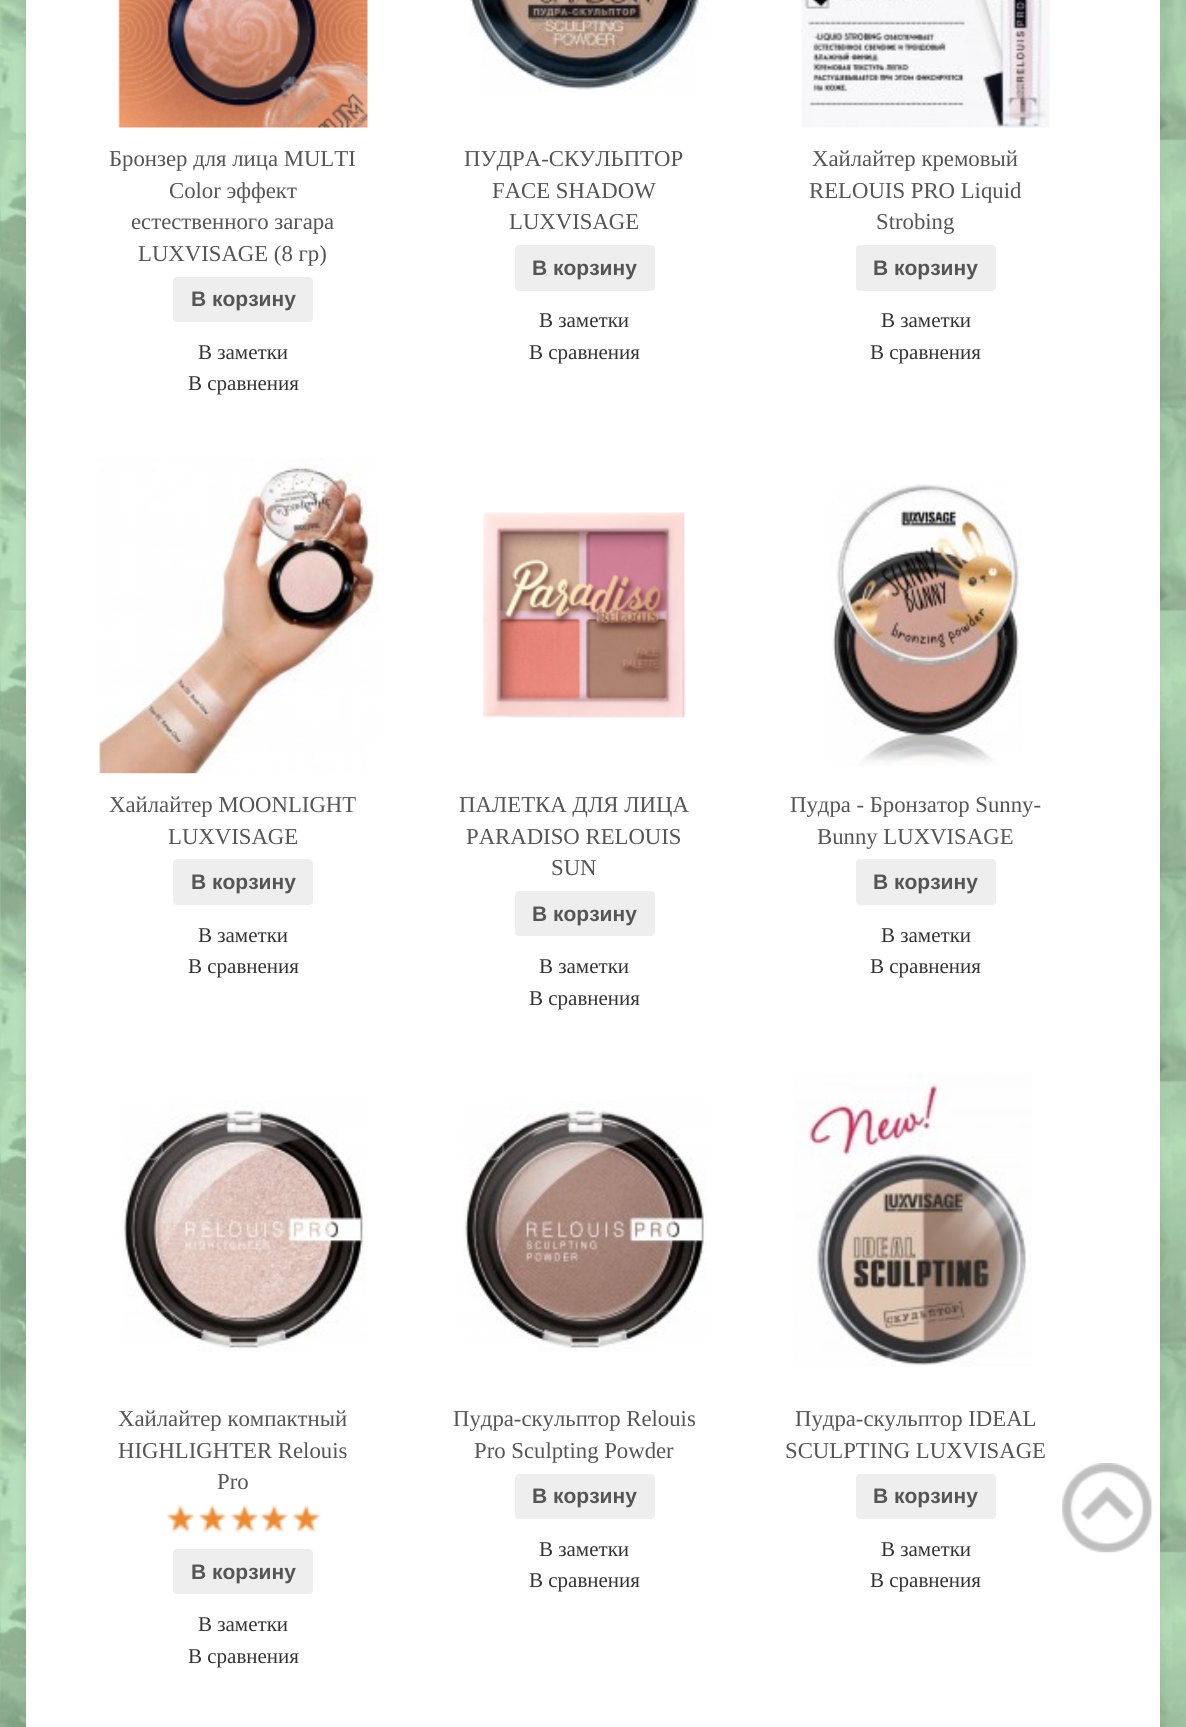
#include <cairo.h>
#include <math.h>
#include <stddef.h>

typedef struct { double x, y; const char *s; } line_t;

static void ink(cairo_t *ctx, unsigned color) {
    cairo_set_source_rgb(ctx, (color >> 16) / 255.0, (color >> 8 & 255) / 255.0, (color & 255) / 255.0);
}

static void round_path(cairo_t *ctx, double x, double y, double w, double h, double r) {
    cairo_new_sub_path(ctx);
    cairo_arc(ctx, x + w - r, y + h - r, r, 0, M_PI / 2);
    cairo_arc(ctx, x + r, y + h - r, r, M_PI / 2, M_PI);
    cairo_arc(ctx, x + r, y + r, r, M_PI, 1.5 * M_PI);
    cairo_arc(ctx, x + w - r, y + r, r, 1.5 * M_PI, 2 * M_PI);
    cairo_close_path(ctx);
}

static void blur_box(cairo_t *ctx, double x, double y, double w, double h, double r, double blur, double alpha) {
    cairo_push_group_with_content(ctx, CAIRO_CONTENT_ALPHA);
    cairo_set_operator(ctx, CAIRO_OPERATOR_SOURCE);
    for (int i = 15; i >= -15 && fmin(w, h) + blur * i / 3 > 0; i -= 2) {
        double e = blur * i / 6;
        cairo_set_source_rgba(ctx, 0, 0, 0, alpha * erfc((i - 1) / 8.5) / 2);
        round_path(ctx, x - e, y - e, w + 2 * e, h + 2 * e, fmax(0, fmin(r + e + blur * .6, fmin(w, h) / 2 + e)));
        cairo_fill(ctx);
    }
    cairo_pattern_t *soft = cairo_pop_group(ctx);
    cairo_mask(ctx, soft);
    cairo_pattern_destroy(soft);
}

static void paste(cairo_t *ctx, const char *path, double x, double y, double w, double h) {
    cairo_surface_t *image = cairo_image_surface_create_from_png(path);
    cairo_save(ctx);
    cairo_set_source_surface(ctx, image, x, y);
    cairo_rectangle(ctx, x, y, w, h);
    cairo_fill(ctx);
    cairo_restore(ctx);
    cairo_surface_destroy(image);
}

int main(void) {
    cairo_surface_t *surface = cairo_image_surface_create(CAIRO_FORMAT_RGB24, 1186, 1727);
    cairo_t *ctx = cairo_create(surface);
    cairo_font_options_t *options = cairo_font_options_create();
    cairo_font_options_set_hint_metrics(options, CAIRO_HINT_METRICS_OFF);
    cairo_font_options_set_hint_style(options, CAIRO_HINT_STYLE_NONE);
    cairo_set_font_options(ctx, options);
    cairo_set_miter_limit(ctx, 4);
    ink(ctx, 0xFFFFFF);
    cairo_paint(ctx);
    paste(ctx, "media/1.png", 0, 0, 1186, 1727);
    ink(ctx, 0x000000);
    blur_box(ctx, 26, -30, 1134, 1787, 9, 7, 0.08);
    ink(ctx, 0xFFFFFF);
    cairo_rectangle(ctx, 26, 0, 1134, 1727);
    cairo_fill(ctx);
    paste(ctx, "media/2.png", 118, 0, 250, 128);
    cairo_select_font_face(ctx, "Liberation Serif", CAIRO_FONT_SLANT_NORMAL, CAIRO_FONT_WEIGHT_NORMAL);
    cairo_set_font_size(ctx, 22.75);
    ink(ctx, 0x555555);
    {
        static const line_t items[] = {
            {109, 166, "Бронзер для лица MULTI"},
            {169, 198, "Color эффект"},
            {131, 229, "естественного загара"},
            {138, 261, "LUXVISAGE (8 гр)"},
        };
        for (size_t i = 0; i < sizeof items / sizeof *items; i++) {
            cairo_move_to(ctx, items[i].x, items[i].y);
            cairo_show_text(ctx, items[i].s);
        }
    }
    ink(ctx, 0xEEEEEE);
    round_path(ctx, 173, 277, 140, 45, 4);
    cairo_fill(ctx);
    cairo_select_font_face(ctx, "Liberation Sans", CAIRO_FONT_SLANT_NORMAL, CAIRO_FONT_WEIGHT_BOLD);
    cairo_set_font_size(ctx, 21);
    ink(ctx, 0x555555);
    cairo_move_to(ctx, 191, 306);
    cairo_show_text(ctx, "В корзину");
    cairo_select_font_face(ctx, "Liberation Serif", CAIRO_FONT_SLANT_NORMAL, CAIRO_FONT_WEIGHT_NORMAL);
    ink(ctx, 0x333333);
    cairo_move_to(ctx, 198, 359);
    cairo_show_text(ctx, "В заметки");
    cairo_move_to(ctx, 188, 390);
    cairo_show_text(ctx, "В сравнения");
    paste(ctx, "media/3.png", 469, 0, 238, 92);
    cairo_set_font_size(ctx, 22.75);
    ink(ctx, 0x555555);
    {
        static const line_t items[] = {
            {464, 166, "ПУДРА-СКУЛЬПТОР"},
            {492, 198, "FACE SHADOW"},
            {509, 229, "LUXVISAGE"},
        };
        for (size_t i = 0; i < sizeof items / sizeof *items; i++) {
            cairo_move_to(ctx, items[i].x, items[i].y);
            cairo_show_text(ctx, items[i].s);
        }
    }
    ink(ctx, 0xEEEEEE);
    round_path(ctx, 515, 245, 140, 46, 4);
    cairo_fill(ctx);
    cairo_select_font_face(ctx, "Liberation Sans", CAIRO_FONT_SLANT_NORMAL, CAIRO_FONT_WEIGHT_BOLD);
    cairo_set_font_size(ctx, 21);
    ink(ctx, 0x555555);
    cairo_move_to(ctx, 532, 275);
    cairo_show_text(ctx, "В корзину");
    cairo_select_font_face(ctx, "Liberation Serif", CAIRO_FONT_SLANT_NORMAL, CAIRO_FONT_WEIGHT_NORMAL);
    ink(ctx, 0x333333);
    cairo_move_to(ctx, 539, 327);
    cairo_show_text(ctx, "В заметки");
    cairo_move_to(ctx, 529, 359);
    cairo_show_text(ctx, "В сравнения");
    paste(ctx, "media/4.png", 801, 0, 249, 128);
    cairo_set_font_size(ctx, 22.75);
    ink(ctx, 0x555555);
    {
        static const line_t items[] = {
            {812, 166, "Хайлайтер кремовый"},
            {809, 198, "RELOUIS PRO Liquid"},
            {876, 229, "Strobing"},
        };
        for (size_t i = 0; i < sizeof items / sizeof *items; i++) {
            cairo_move_to(ctx, items[i].x, items[i].y);
            cairo_show_text(ctx, items[i].s);
        }
    }
    ink(ctx, 0xEEEEEE);
    round_path(ctx, 856, 245, 140, 46, 4);
    cairo_fill(ctx);
    cairo_select_font_face(ctx, "Liberation Sans", CAIRO_FONT_SLANT_NORMAL, CAIRO_FONT_WEIGHT_BOLD);
    cairo_set_font_size(ctx, 21);
    ink(ctx, 0x555555);
    cairo_move_to(ctx, 873, 275);
    cairo_show_text(ctx, "В корзину");
    cairo_select_font_face(ctx, "Liberation Serif", CAIRO_FONT_SLANT_NORMAL, CAIRO_FONT_WEIGHT_NORMAL);
    ink(ctx, 0x333333);
    cairo_move_to(ctx, 881, 327);
    cairo_show_text(ctx, "В заметки");
    cairo_move_to(ctx, 870, 359);
    cairo_show_text(ctx, "В сравнения");
    paste(ctx, "media/5.png", 96, 458, 283, 316);
    cairo_set_font_size(ctx, 22.75);
    ink(ctx, 0x555555);
    cairo_move_to(ctx, 109, 812);
    cairo_show_text(ctx, "Хайлайтер MOONLIGHT");
    cairo_move_to(ctx, 168, 844);
    cairo_show_text(ctx, "LUXVISAGE");
    ink(ctx, 0xEEEEEE);
    round_path(ctx, 173, 859, 140, 46, 4);
    cairo_fill(ctx);
    cairo_select_font_face(ctx, "Liberation Sans", CAIRO_FONT_SLANT_NORMAL, CAIRO_FONT_WEIGHT_BOLD);
    cairo_set_font_size(ctx, 21);
    ink(ctx, 0x555555);
    cairo_move_to(ctx, 191, 889);
    cairo_show_text(ctx, "В корзину");
    cairo_select_font_face(ctx, "Liberation Serif", CAIRO_FONT_SLANT_NORMAL, CAIRO_FONT_WEIGHT_NORMAL);
    ink(ctx, 0x333333);
    cairo_move_to(ctx, 198, 942);
    cairo_show_text(ctx, "В заметки");
    cairo_move_to(ctx, 188, 973);
    cairo_show_text(ctx, "В сравнения");
    paste(ctx, "media/6.png", 482, 512, 204, 206);
    cairo_set_font_size(ctx, 22.75);
    ink(ctx, 0x555555);
    {
        static const line_t items[] = {
            {459, 812, "ПАЛЕТКА ДЛЯ ЛИЦА"},
            {466, 844, "PARADISO RELOUIS"},
            {551, 875, "SUN"},
        };
        for (size_t i = 0; i < sizeof items / sizeof *items; i++) {
            cairo_move_to(ctx, items[i].x, items[i].y);
            cairo_show_text(ctx, items[i].s);
        }
    }
    ink(ctx, 0xEEEEEE);
    round_path(ctx, 515, 891, 140, 45, 4);
    cairo_fill(ctx);
    cairo_select_font_face(ctx, "Liberation Sans", CAIRO_FONT_SLANT_NORMAL, CAIRO_FONT_WEIGHT_BOLD);
    cairo_set_font_size(ctx, 21);
    ink(ctx, 0x555555);
    cairo_move_to(ctx, 532, 921);
    cairo_show_text(ctx, "В корзину");
    cairo_select_font_face(ctx, "Liberation Serif", CAIRO_FONT_SLANT_NORMAL, CAIRO_FONT_WEIGHT_NORMAL);
    ink(ctx, 0x333333);
    cairo_move_to(ctx, 539, 973);
    cairo_show_text(ctx, "В заметки");
    cairo_move_to(ctx, 529, 1005);
    cairo_show_text(ctx, "В сравнения");
    paste(ctx, "media/7.png", 830, 484, 192, 282);
    cairo_set_font_size(ctx, 22.75);
    ink(ctx, 0x555555);
    cairo_move_to(ctx, 790, 812);
    cairo_show_text(ctx, "Пудра - Бронзатор Sunny-");
    cairo_move_to(ctx, 817, 844);
    cairo_show_text(ctx, "Bunny LUXVISAGE");
    ink(ctx, 0xEEEEEE);
    round_path(ctx, 856, 859, 140, 46, 4);
    cairo_fill(ctx);
    cairo_select_font_face(ctx, "Liberation Sans", CAIRO_FONT_SLANT_NORMAL, CAIRO_FONT_WEIGHT_BOLD);
    cairo_set_font_size(ctx, 21);
    ink(ctx, 0x555555);
    cairo_move_to(ctx, 873, 889);
    cairo_show_text(ctx, "В корзину");
    cairo_select_font_face(ctx, "Liberation Serif", CAIRO_FONT_SLANT_NORMAL, CAIRO_FONT_WEIGHT_NORMAL);
    ink(ctx, 0x333333);
    cairo_move_to(ctx, 881, 942);
    cairo_show_text(ctx, "В заметки");
    cairo_move_to(ctx, 870, 973);
    cairo_show_text(ctx, "В сравнения");
    paste(ctx, "media/8.png", 121, 1101, 245, 251);
    cairo_set_font_size(ctx, 22.75);
    ink(ctx, 0x555555);
    {
        static const line_t items[] = {
            {118, 1426, "Хайлайтер компактный"},
            {118, 1458, "HIGHLIGHTER Relouis"},
            {217, 1489, "Pro"},
        };
        for (size_t i = 0; i < sizeof items / sizeof *items; i++) {
            cairo_move_to(ctx, items[i].x, items[i].y);
            cairo_show_text(ctx, items[i].s);
        }
    }
    paste(ctx, "media/9.png", 166, 1504, 155, 29);
    ink(ctx, 0xEEEEEE);
    round_path(ctx, 173, 1549, 140, 45, 4);
    cairo_fill(ctx);
    cairo_select_font_face(ctx, "Liberation Sans", CAIRO_FONT_SLANT_NORMAL, CAIRO_FONT_WEIGHT_BOLD);
    cairo_set_font_size(ctx, 21);
    ink(ctx, 0x555555);
    cairo_move_to(ctx, 191, 1579);
    cairo_show_text(ctx, "В корзину");
    cairo_select_font_face(ctx, "Liberation Serif", CAIRO_FONT_SLANT_NORMAL, CAIRO_FONT_WEIGHT_NORMAL);
    ink(ctx, 0x333333);
    cairo_move_to(ctx, 198, 1631);
    cairo_show_text(ctx, "В заметки");
    cairo_move_to(ctx, 188, 1663);
    cairo_show_text(ctx, "В сравнения");
    paste(ctx, "media/10.png", 462, 1101, 245, 251);
    cairo_set_font_size(ctx, 22.75);
    ink(ctx, 0x555555);
    cairo_move_to(ctx, 453, 1426);
    cairo_show_text(ctx, "Пудра-скульптор Relouis");
    cairo_move_to(ctx, 474, 1458);
    cairo_show_text(ctx, "Pro Sculpting Powder");
    ink(ctx, 0xEEEEEE);
    round_path(ctx, 515, 1474, 140, 45, 4);
    cairo_fill(ctx);
    cairo_select_font_face(ctx, "Liberation Sans", CAIRO_FONT_SLANT_NORMAL, CAIRO_FONT_WEIGHT_BOLD);
    cairo_set_font_size(ctx, 21);
    ink(ctx, 0x555555);
    cairo_move_to(ctx, 532, 1503);
    cairo_show_text(ctx, "В корзину");
    cairo_select_font_face(ctx, "Liberation Serif", CAIRO_FONT_SLANT_NORMAL, CAIRO_FONT_WEIGHT_NORMAL);
    ink(ctx, 0x333333);
    cairo_move_to(ctx, 539, 1556);
    cairo_show_text(ctx, "В заметки");
    cairo_move_to(ctx, 529, 1587);
    cairo_show_text(ctx, "В сравнения");
    paste(ctx, "media/11.png", 795, 1072, 237, 295);
    cairo_set_font_size(ctx, 22.75);
    ink(ctx, 0x555555);
    cairo_move_to(ctx, 795, 1426);
    cairo_show_text(ctx, "Пудра-скульптор IDEAL");
    cairo_move_to(ctx, 785, 1458);
    cairo_show_text(ctx, "SCULPTING LUXVISAGE");
    ink(ctx, 0xEEEEEE);
    round_path(ctx, 856, 1474, 140, 45, 4);
    cairo_fill(ctx);
    cairo_select_font_face(ctx, "Liberation Sans", CAIRO_FONT_SLANT_NORMAL, CAIRO_FONT_WEIGHT_BOLD);
    cairo_set_font_size(ctx, 21);
    ink(ctx, 0x555555);
    cairo_move_to(ctx, 873, 1503);
    cairo_show_text(ctx, "В корзину");
    cairo_select_font_face(ctx, "Liberation Serif", CAIRO_FONT_SLANT_NORMAL, CAIRO_FONT_WEIGHT_NORMAL);
    ink(ctx, 0x333333);
    cairo_move_to(ctx, 881, 1556);
    cairo_show_text(ctx, "В заметки");
    cairo_move_to(ctx, 870, 1587);
    cairo_show_text(ctx, "В сравнения");
    paste(ctx, "media/12.png", 1062, 1463, 91, 90);
    cairo_surface_write_to_png(surface, "image.png");
    cairo_font_options_destroy(options);
    cairo_destroy(ctx);
    cairo_surface_destroy(surface);
    return 0;
}
